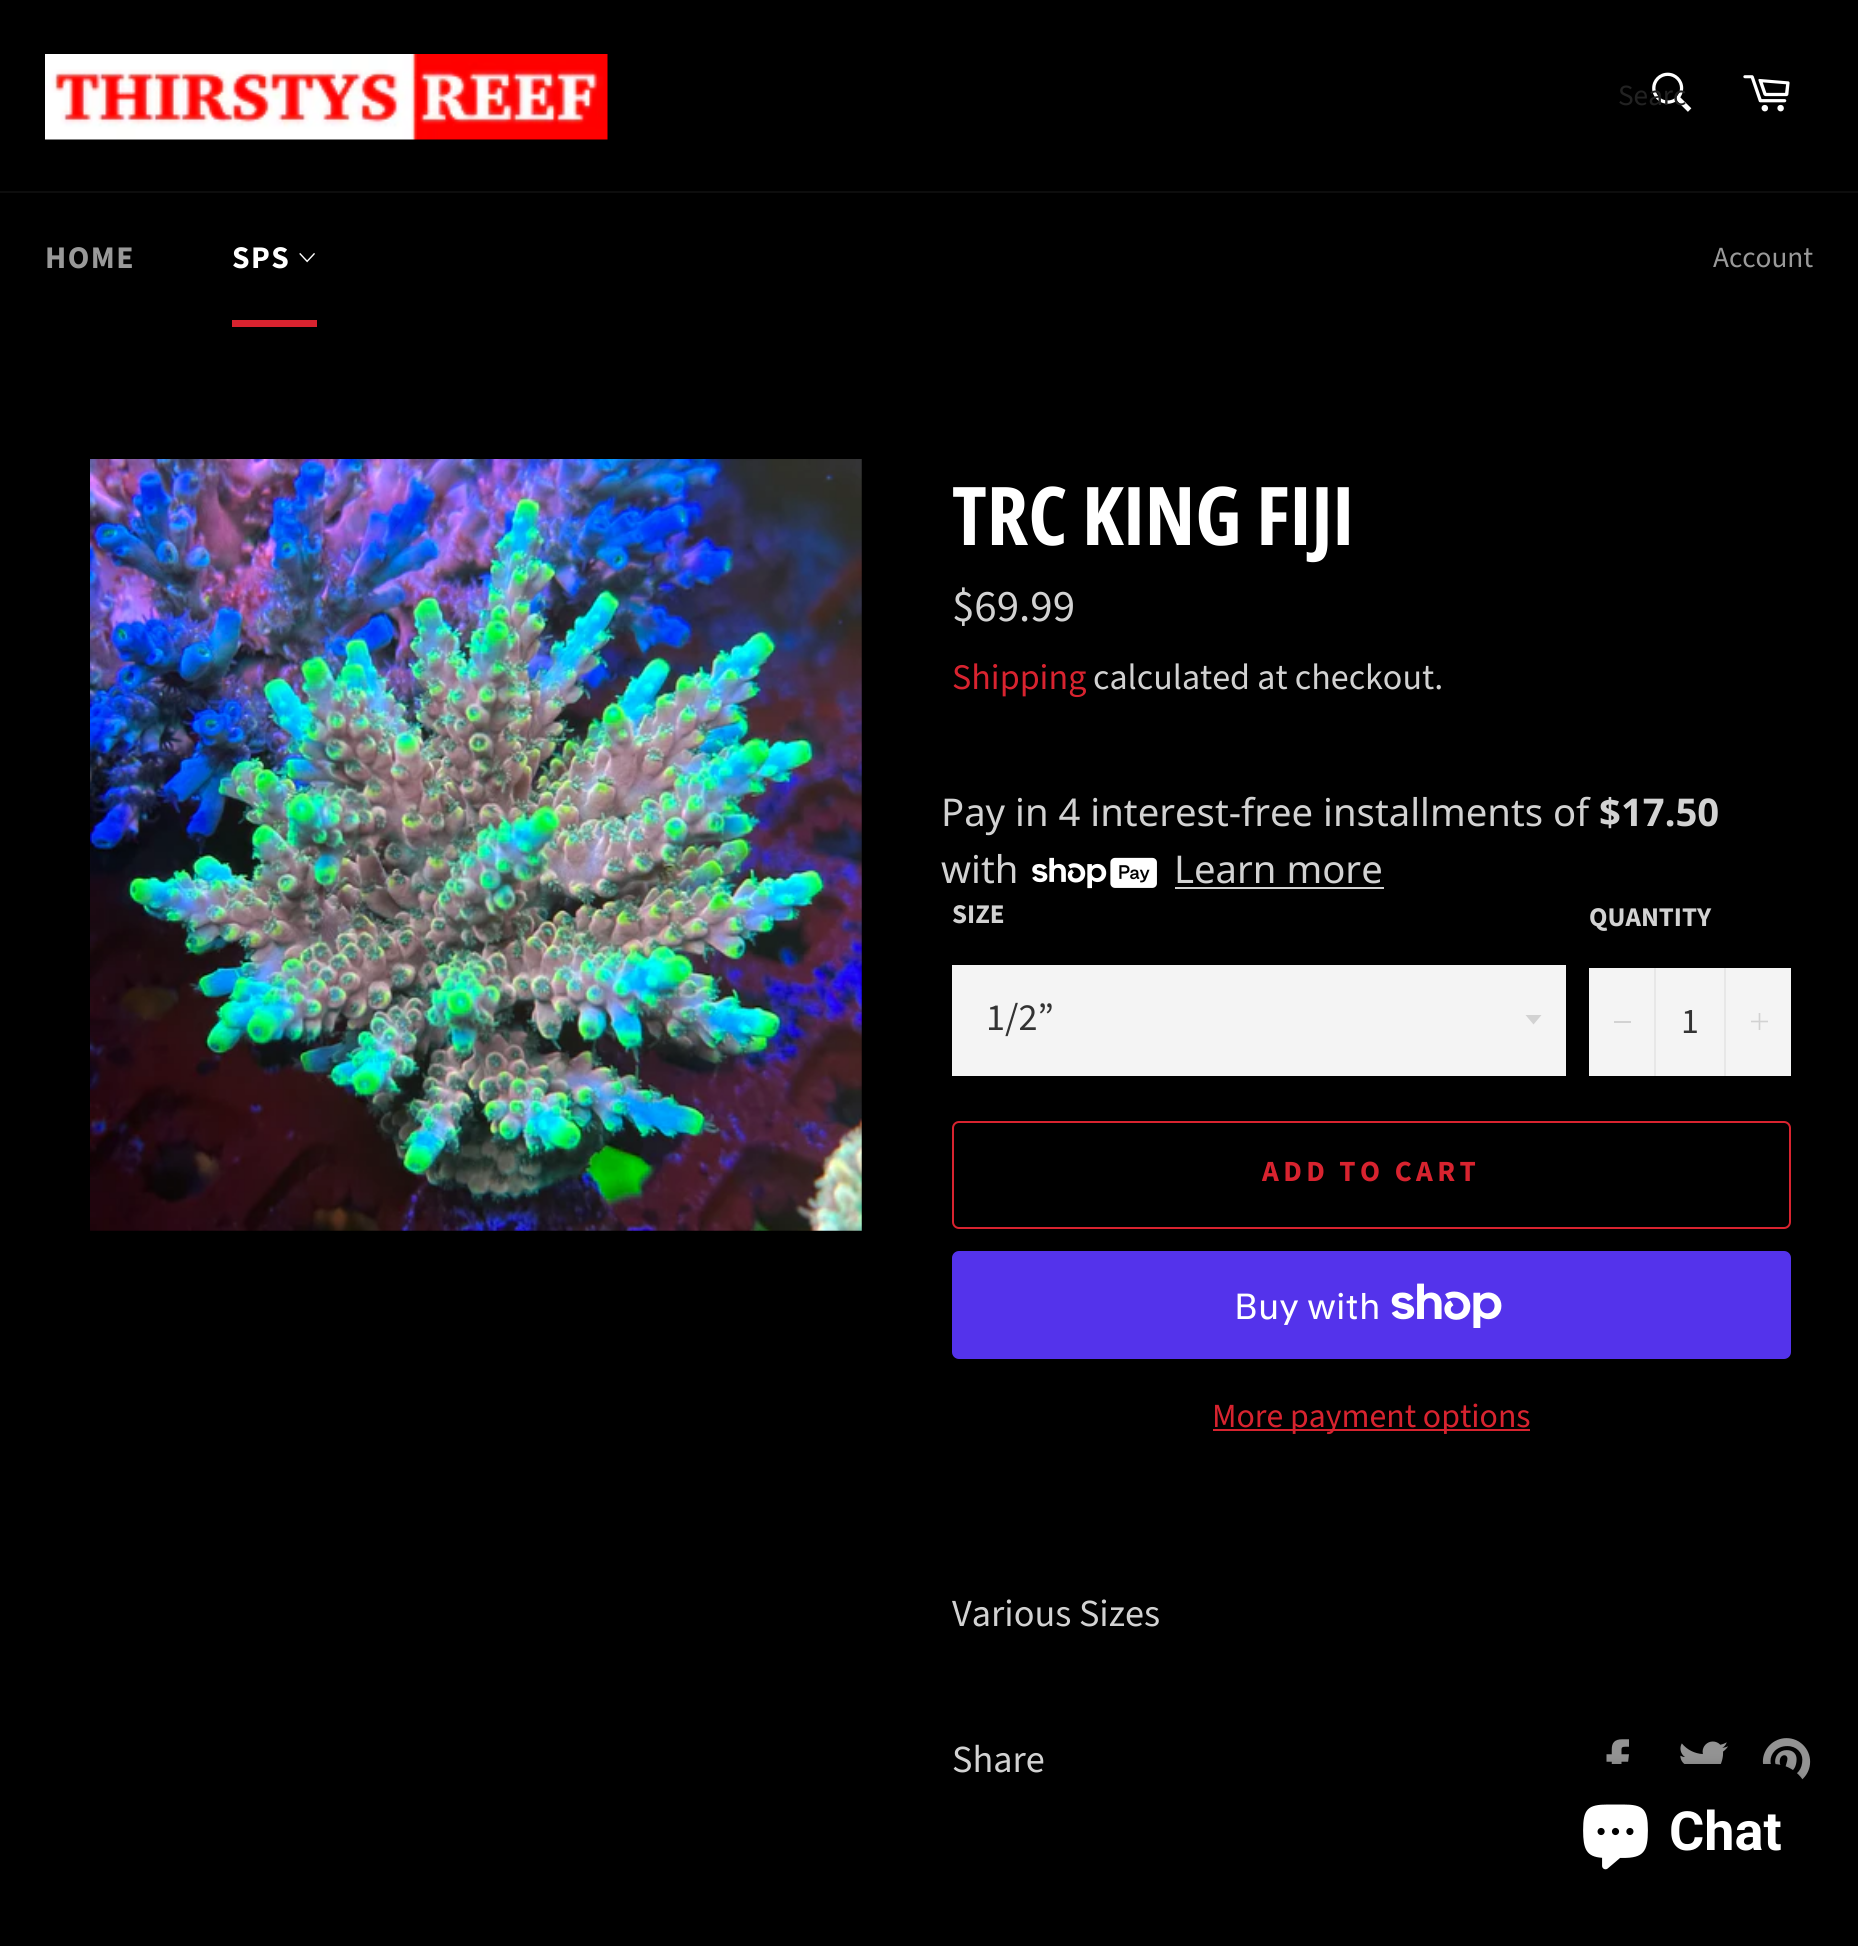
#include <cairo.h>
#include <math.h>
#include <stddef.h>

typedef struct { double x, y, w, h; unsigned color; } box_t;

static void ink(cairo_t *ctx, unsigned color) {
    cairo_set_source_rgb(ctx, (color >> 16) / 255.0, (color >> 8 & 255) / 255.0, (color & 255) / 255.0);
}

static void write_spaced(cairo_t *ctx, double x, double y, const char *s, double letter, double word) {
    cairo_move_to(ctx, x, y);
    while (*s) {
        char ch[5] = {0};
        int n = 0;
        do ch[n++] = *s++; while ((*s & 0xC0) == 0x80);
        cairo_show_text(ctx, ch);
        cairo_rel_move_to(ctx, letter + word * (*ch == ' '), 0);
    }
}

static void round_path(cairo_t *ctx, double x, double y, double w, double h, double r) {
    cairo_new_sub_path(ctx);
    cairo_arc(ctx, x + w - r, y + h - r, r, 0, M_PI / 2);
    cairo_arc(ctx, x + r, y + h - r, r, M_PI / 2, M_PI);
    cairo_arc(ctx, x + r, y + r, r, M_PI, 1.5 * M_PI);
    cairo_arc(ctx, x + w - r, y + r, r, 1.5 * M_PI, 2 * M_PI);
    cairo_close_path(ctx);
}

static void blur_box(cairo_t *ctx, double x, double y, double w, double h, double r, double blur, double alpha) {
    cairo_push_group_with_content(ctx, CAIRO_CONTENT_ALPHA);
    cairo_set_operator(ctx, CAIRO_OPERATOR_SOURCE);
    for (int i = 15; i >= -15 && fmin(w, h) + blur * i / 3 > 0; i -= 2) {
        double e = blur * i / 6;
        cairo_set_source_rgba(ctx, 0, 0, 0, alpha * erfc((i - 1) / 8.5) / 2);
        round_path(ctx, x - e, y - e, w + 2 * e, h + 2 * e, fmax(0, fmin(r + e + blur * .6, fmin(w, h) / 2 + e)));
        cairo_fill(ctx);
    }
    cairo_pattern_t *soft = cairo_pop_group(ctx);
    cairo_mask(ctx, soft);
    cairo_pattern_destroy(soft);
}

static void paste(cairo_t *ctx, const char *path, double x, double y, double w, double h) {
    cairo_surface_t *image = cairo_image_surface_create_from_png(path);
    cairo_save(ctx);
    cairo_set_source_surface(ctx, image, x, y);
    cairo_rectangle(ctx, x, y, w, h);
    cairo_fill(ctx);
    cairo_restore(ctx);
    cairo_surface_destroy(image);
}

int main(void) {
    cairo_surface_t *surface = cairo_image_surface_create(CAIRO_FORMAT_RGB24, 1858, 1946);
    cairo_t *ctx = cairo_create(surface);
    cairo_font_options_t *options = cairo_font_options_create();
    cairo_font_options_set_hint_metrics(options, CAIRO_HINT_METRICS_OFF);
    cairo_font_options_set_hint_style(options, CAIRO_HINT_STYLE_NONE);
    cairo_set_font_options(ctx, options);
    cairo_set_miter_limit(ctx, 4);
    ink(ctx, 0x000000);
    cairo_paint(ctx);
    paste(ctx, "media/1.png", 45, 54, 563, 86);
    paste(ctx, "media/2.png", 1652, 72, 40, 40);
    cairo_select_font_face(ctx, "Source Sans Pro", CAIRO_FONT_SLANT_NORMAL, CAIRO_FONT_WEIGHT_NORMAL);
    cairo_set_font_size(ctx, 29.25);
    ink(ctx, 0x222222);
    cairo_move_to(ctx, 1618, 105);
    cairo_show_text(ctx, "Searc");
    paste(ctx, "media/3.png", 1743, 75, 47, 37);
    ink(ctx, 0x0D0D0D);
    cairo_rectangle(ctx, 0, 191, 1858, 2);
    cairo_fill(ctx);
    cairo_select_font_face(ctx, "Source Sans Pro", CAIRO_FONT_SLANT_NORMAL, CAIRO_FONT_WEIGHT_BOLD);
    cairo_set_font_size(ctx, 31.5);
    ink(ctx, 0x999999);
    write_spaced(ctx, 45, 268, "HOME", 1.5, 0);
    ink(ctx, 0xFFFFFF);
    write_spaced(ctx, 232, 268, "SPS", 1.5, 0);
    paste(ctx, "media/4.png", 299, 253, 16, 10);
    ink(ctx, 0xD8232F);
    cairo_rectangle(ctx, 232, 320, 85, 7);
    cairo_fill(ctx);
    cairo_select_font_face(ctx, "Source Sans Pro", CAIRO_FONT_SLANT_NORMAL, CAIRO_FONT_WEIGHT_NORMAL);
    cairo_set_font_size(ctx, 29.25);
    ink(ctx, 0x999999);
    cairo_move_to(ctx, 1713, 267);
    cairo_show_text(ctx, "Account");
    paste(ctx, "media/5.png", 90, 459, 772, 772);
    cairo_select_font_face(ctx, "Open Sans Condensed", CAIRO_FONT_SLANT_NORMAL, CAIRO_FONT_WEIGHT_BOLD);
    cairo_set_font_size(ctx, 81);
    ink(ctx, 0xFFFFFF);
    cairo_move_to(ctx, 952, 545);
    cairo_show_text(ctx, "TRC KING FIJI");
    cairo_select_font_face(ctx, "Source Sans Pro", CAIRO_FONT_SLANT_NORMAL, CAIRO_FONT_WEIGHT_NORMAL);
    cairo_set_font_size(ctx, 45);
    ink(ctx, 0xD2D2D2);
    cairo_move_to(ctx, 952, 621);
    cairo_show_text(ctx, "$69.99");
    cairo_set_font_size(ctx, 36);
    ink(ctx, 0xD8232F);
    cairo_move_to(ctx, 952, 689);
    cairo_show_text(ctx, "Shipping");
    ink(ctx, 0xD2D2D2);
    cairo_move_to(ctx, 1093, 689);
    cairo_show_text(ctx, "calculated at checkout.");
    cairo_select_font_face(ctx, "Noto Sans", CAIRO_FONT_SLANT_NORMAL, CAIRO_FONT_WEIGHT_NORMAL);
    cairo_set_font_size(ctx, 38.25);
    cairo_move_to(ctx, 941, 826);
    cairo_show_text(ctx, "Pay in 4 interest-free installments of");
    cairo_select_font_face(ctx, "Noto Sans", CAIRO_FONT_SLANT_NORMAL, CAIRO_FONT_WEIGHT_BOLD);
    cairo_move_to(ctx, 1599, 826);
    cairo_show_text(ctx, "$17.50");
    cairo_select_font_face(ctx, "Noto Sans", CAIRO_FONT_SLANT_NORMAL, CAIRO_FONT_WEIGHT_NORMAL);
    cairo_move_to(ctx, 941, 883);
    cairo_show_text(ctx, "with");
    paste(ctx, "media/6.png", 1032, 857, 125, 32);
    cairo_move_to(ctx, 1174, 883);
    cairo_show_text(ctx, "Learn more");
    cairo_rectangle(ctx, 1175, 887, 209, 2);
    cairo_fill(ctx);
    cairo_select_font_face(ctx, "Source Sans Pro", CAIRO_FONT_SLANT_NORMAL, CAIRO_FONT_WEIGHT_BOLD);
    cairo_set_font_size(ctx, 27);
    cairo_move_to(ctx, 952, 923);
    cairo_show_text(ctx, "SIZE");
    ink(ctx, 0xF4F4F4);
    cairo_rectangle(ctx, 952, 965, 614, 111);
    cairo_fill(ctx);
    ink(ctx, 0xD2D2D2);
    cairo_new_path(ctx);
    cairo_move_to(ctx, 1525.5, 1015);
    cairo_line_to(ctx, 1533.5, 1024.5);
    cairo_line_to(ctx, 1541.5, 1015);
    cairo_close_path(ctx);
    cairo_fill(ctx);
    cairo_select_font_face(ctx, "Source Sans Pro", CAIRO_FONT_SLANT_NORMAL, CAIRO_FONT_WEIGHT_NORMAL);
    cairo_set_font_size(ctx, 38.25);
    ink(ctx, 0x333333);
    cairo_move_to(ctx, 986, 1030);
    cairo_show_text(ctx, "1/2”");
    cairo_select_font_face(ctx, "Source Sans Pro", CAIRO_FONT_SLANT_NORMAL, CAIRO_FONT_WEIGHT_BOLD);
    cairo_set_font_size(ctx, 27);
    ink(ctx, 0xD2D2D2);
    cairo_move_to(ctx, 1589, 926);
    cairo_show_text(ctx, "QUANTITY");
    {
        static const box_t items[] = {
            {1589, 968, 202, 108, 0xF4F4F4},
            {1654, 968, 2, 108, 0xE7E7E7},
            {1614, 1021, 17, 2, 0xD2D2D2},
        };
        for (size_t i = 0; i < sizeof items / sizeof *items; i++) {
            ink(ctx, items[i].color);
            cairo_rectangle(ctx, items[i].x, items[i].y, items[i].w, items[i].h);
            cairo_fill(ctx);
        }
    }
    cairo_select_font_face(ctx, "Source Sans Pro", CAIRO_FONT_SLANT_NORMAL, CAIRO_FONT_WEIGHT_NORMAL);
    cairo_set_font_size(ctx, 36);
    ink(ctx, 0x333333);
    cairo_move_to(ctx, 1681, 1033);
    cairo_show_text(ctx, "1");
    ink(ctx, 0xE7E7E7);
    cairo_rectangle(ctx, 1724, 968, 2, 108);
    cairo_fill(ctx);
    paste(ctx, "media/7.png", 1751, 1013, 17, 17);
    round_path(ctx, 953, 1122, 837, 106, 6);
    ink(ctx, 0xD8232F);
    cairo_stroke(ctx);
    cairo_select_font_face(ctx, "Source Sans Pro", CAIRO_FONT_SLANT_NORMAL, CAIRO_FONT_WEIGHT_BOLD);
    cairo_set_font_size(ctx, 29.25);
    write_spaced(ctx, 1262, 1181, "ADD TO CART", 4.4, 0);
    ink(ctx, 0x5433EB);
    round_path(ctx, 952, 1251, 839, 108, 7);
    cairo_fill(ctx);
    cairo_select_font_face(ctx, "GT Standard", CAIRO_FONT_SLANT_NORMAL, CAIRO_FONT_WEIGHT_NORMAL);
    cairo_set_font_size(ctx, 36);
    ink(ctx, 0xFFFFFF);
    cairo_move_to(ctx, 1234, 1319);
    cairo_show_text(ctx, "Buy with");
    paste(ctx, "media/8.png", 1391, 1283, 111, 45);
    ink(ctx, 0xD8232F);
    cairo_rectangle(ctx, 1213, 1429, 317, 2);
    cairo_fill(ctx);
    cairo_select_font_face(ctx, "Source Sans Pro", CAIRO_FONT_SLANT_NORMAL, CAIRO_FONT_WEIGHT_NORMAL);
    cairo_set_font_size(ctx, 33.75);
    cairo_move_to(ctx, 1212, 1427);
    cairo_show_text(ctx, "More payment options");
    cairo_set_font_size(ctx, 38.25);
    ink(ctx, 0xD2D2D2);
    cairo_move_to(ctx, 952, 1626);
    cairo_show_text(ctx, "Various Sizes");
    cairo_move_to(ctx, 952, 1772);
    cairo_show_text(ctx, "Share");
    paste(ctx, "media/9.png", 1606, 1739, 23, 25);
    paste(ctx, "media/10.png", 1680, 1741, 48, 23);
    paste(ctx, "media/11.png", 1762, 1738, 49, 42);
    ink(ctx, 0x000000);
    blur_box(ctx, 1555, 1764, 254, 135, 36, 5.5, 0.15);
    ink(ctx, 0x000000);
    round_path(ctx, 1555, 1764, 254, 135, 36);
    cairo_fill(ctx);
    paste(ctx, "media/12.png", 1583, 1804, 65, 66);
    cairo_select_font_face(ctx, "Roboto", CAIRO_FONT_SLANT_NORMAL, CAIRO_FONT_WEIGHT_BOLD);
    cairo_set_font_size(ctx, 54);
    ink(ctx, 0xFFFFFF);
    cairo_move_to(ctx, 1669, 1850);
    cairo_show_text(ctx, "Chat");
    cairo_surface_write_to_png(surface, "image.png");
    cairo_font_options_destroy(options);
    cairo_destroy(ctx);
    cairo_surface_destroy(surface);
    return 0;
}
